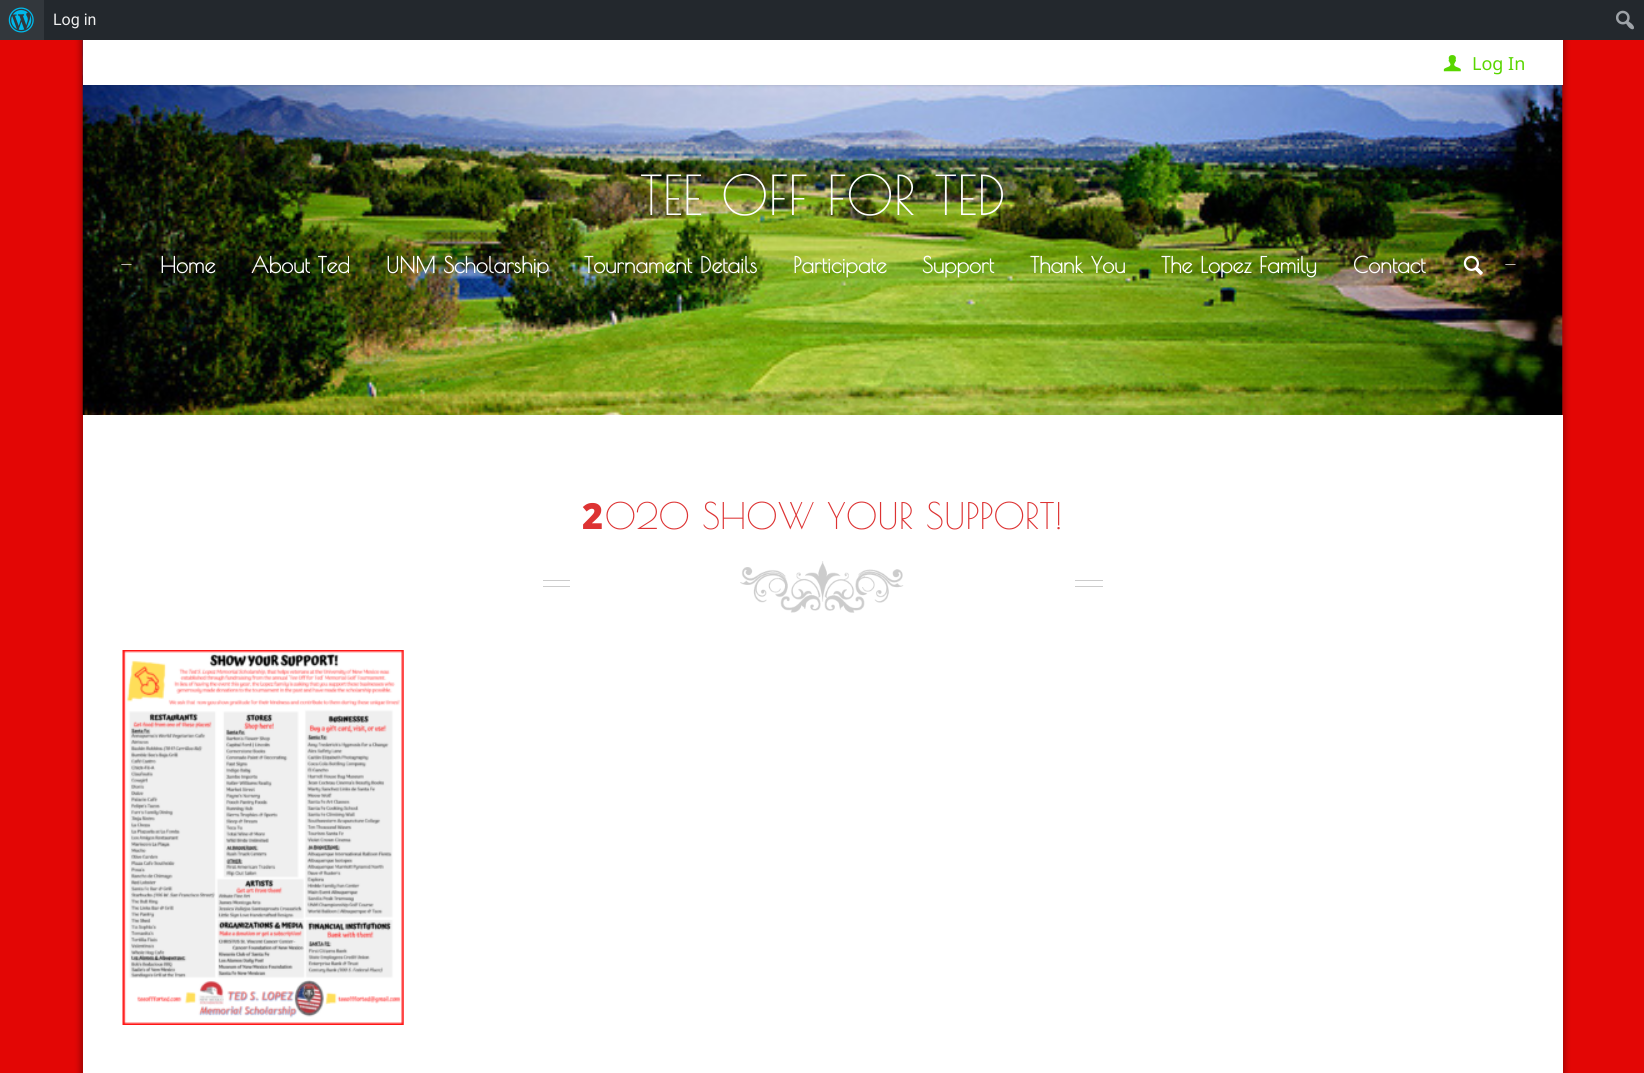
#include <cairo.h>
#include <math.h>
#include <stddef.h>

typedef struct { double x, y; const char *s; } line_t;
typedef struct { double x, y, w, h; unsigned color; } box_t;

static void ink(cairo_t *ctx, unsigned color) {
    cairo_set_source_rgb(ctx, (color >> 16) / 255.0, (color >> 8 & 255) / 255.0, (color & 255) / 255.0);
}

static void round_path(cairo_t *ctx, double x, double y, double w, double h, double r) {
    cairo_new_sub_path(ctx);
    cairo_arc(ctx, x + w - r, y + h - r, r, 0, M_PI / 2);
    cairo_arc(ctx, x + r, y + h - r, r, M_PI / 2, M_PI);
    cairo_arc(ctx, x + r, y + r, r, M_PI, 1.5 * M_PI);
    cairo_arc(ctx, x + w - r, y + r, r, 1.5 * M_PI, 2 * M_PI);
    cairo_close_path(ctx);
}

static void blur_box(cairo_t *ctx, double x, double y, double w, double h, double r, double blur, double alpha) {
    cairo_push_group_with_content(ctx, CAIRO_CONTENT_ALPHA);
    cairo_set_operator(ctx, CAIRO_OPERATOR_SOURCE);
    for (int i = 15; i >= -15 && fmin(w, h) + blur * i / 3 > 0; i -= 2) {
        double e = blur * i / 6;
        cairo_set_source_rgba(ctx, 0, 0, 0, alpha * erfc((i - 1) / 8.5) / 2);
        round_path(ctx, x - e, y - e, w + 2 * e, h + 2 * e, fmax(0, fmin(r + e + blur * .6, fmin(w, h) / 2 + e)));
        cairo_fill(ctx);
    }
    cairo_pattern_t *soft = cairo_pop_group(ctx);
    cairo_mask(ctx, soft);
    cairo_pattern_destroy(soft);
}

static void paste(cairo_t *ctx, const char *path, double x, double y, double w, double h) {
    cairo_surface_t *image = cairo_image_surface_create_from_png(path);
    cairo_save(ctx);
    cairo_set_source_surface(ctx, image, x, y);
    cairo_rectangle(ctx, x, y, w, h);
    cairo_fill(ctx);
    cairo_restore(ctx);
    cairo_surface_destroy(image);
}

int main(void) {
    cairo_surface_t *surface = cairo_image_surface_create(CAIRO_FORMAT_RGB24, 1644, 1073);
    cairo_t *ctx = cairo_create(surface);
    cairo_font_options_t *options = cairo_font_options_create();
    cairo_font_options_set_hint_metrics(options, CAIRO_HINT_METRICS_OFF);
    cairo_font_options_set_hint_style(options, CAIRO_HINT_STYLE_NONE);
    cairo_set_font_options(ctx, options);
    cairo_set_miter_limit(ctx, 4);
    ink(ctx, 0xE30605);
    cairo_paint(ctx);
    ink(ctx, 0x000000);
    blur_box(ctx, 80, 38, 1485, 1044, 0, 3, 0.3);
    paste(ctx, "media/3.png", 82, 40, 1481, 375);
    blur_box(ctx, 83, 41, 1480, 45, 0, 1, 0.1);
    ink(ctx, 0x23282D);
    cairo_rectangle(ctx, 44, 0, 1600, 40);
    cairo_fill(ctx);
    ink(ctx, 0x32373C);
    cairo_rectangle(ctx, 0, 0, 44, 40);
    cairo_fill(ctx);
    paste(ctx, "media/1.png", 8, 7, 26, 26);
    cairo_select_font_face(ctx, "Roboto", CAIRO_FONT_SLANT_NORMAL, CAIRO_FONT_WEIGHT_NORMAL);
    cairo_set_font_size(ctx, 16);
    ink(ctx, 0xEEEEEE);
    cairo_move_to(ctx, 53, 25);
    cairo_show_text(ctx, "Log in");
    paste(ctx, "media/2.png", 1616, 10, 18, 20);
    ink(ctx, 0xFFFFFF);
    cairo_rectangle(ctx, 83, 40, 1480, 45);
    cairo_fill(ctx);
    paste(ctx, "media/4.png", 1443, 55, 18, 17);
    cairo_select_font_face(ctx, "Noto Sans", CAIRO_FONT_SLANT_NORMAL, CAIRO_FONT_WEIGHT_NORMAL);
    cairo_set_font_size(ctx, 18);
    ink(ctx, 0x59D600);
    cairo_move_to(ctx, 1472, 70);
    cairo_show_text(ctx, "Log In");
    cairo_select_font_face(ctx, "Poiret One", CAIRO_FONT_SLANT_NORMAL, CAIRO_FONT_WEIGHT_NORMAL);
    cairo_set_font_size(ctx, 54);
    ink(ctx, 0xFFFFFF);
    cairo_move_to(ctx, 640, 215);
    cairo_show_text(ctx, "TEE OFF FOR TED");
    cairo_set_font_size(ctx, 22);
    cairo_move_to(ctx, 121, 271);
    cairo_show_text(ctx, "—");
    cairo_select_font_face(ctx, "Poiret One", CAIRO_FONT_SLANT_NORMAL, CAIRO_FONT_WEIGHT_BOLD);
    {
        static const line_t items[] = {
            {160, 273, "Home"},
            {251, 273, "About Ted"},
            {386, 273, "UNM Scholarship"},
            {584, 273, "Tournament Details"},
            {793, 273, "Participate"},
            {922, 273, "Support"},
            {1030, 273, "Thank You"},
            {1161, 273, "The Lopez Family"},
            {1353, 273, "Contact"},
        };
        for (size_t i = 0; i < sizeof items / sizeof *items; i++) {
            cairo_move_to(ctx, items[i].x, items[i].y);
            cairo_show_text(ctx, items[i].s);
        }
    }
    paste(ctx, "media/5.png", 1463, 255, 20, 20);
    cairo_select_font_face(ctx, "Poiret One", CAIRO_FONT_SLANT_NORMAL, CAIRO_FONT_WEIGHT_NORMAL);
    cairo_move_to(ctx, 1505, 271);
    cairo_show_text(ctx, "—");
    {
        static const box_t items[] = {
            {83, 415, 1480, 658, 0xFFFFFF},
            {543, 580, 560, 1, 0xCCCCCC},
            {543, 586, 560, 1, 0xCCCCCC},
            {570, 580, 505, 7, 0xFFFFFF},
        };
        for (size_t i = 0; i < sizeof items / sizeof *items; i++) {
            ink(ctx, items[i].color);
            cairo_rectangle(ctx, items[i].x, items[i].y, items[i].w, items[i].h);
            cairo_fill(ctx);
        }
    }
    cairo_select_font_face(ctx, "Noto Sans Black", CAIRO_FONT_SLANT_NORMAL, CAIRO_FONT_WEIGHT_NORMAL);
    cairo_set_font_size(ctx, 36);
    ink(ctx, 0xDD3333);
    cairo_move_to(ctx, 582, 529);
    cairo_show_text(ctx, "2");
    cairo_select_font_face(ctx, "Poiret One", CAIRO_FONT_SLANT_NORMAL, CAIRO_FONT_WEIGHT_NORMAL);
    cairo_move_to(ctx, 605, 529);
    cairo_show_text(ctx, "020 SHOW YOUR SUPPORT!");
    paste(ctx, "media/6.png", 740, 561, 164, 52);
    paste(ctx, "media/7.png", 122, 650, 282, 375);
    cairo_surface_write_to_png(surface, "image.png");
    cairo_font_options_destroy(options);
    cairo_destroy(ctx);
    cairo_surface_destroy(surface);
    return 0;
}
